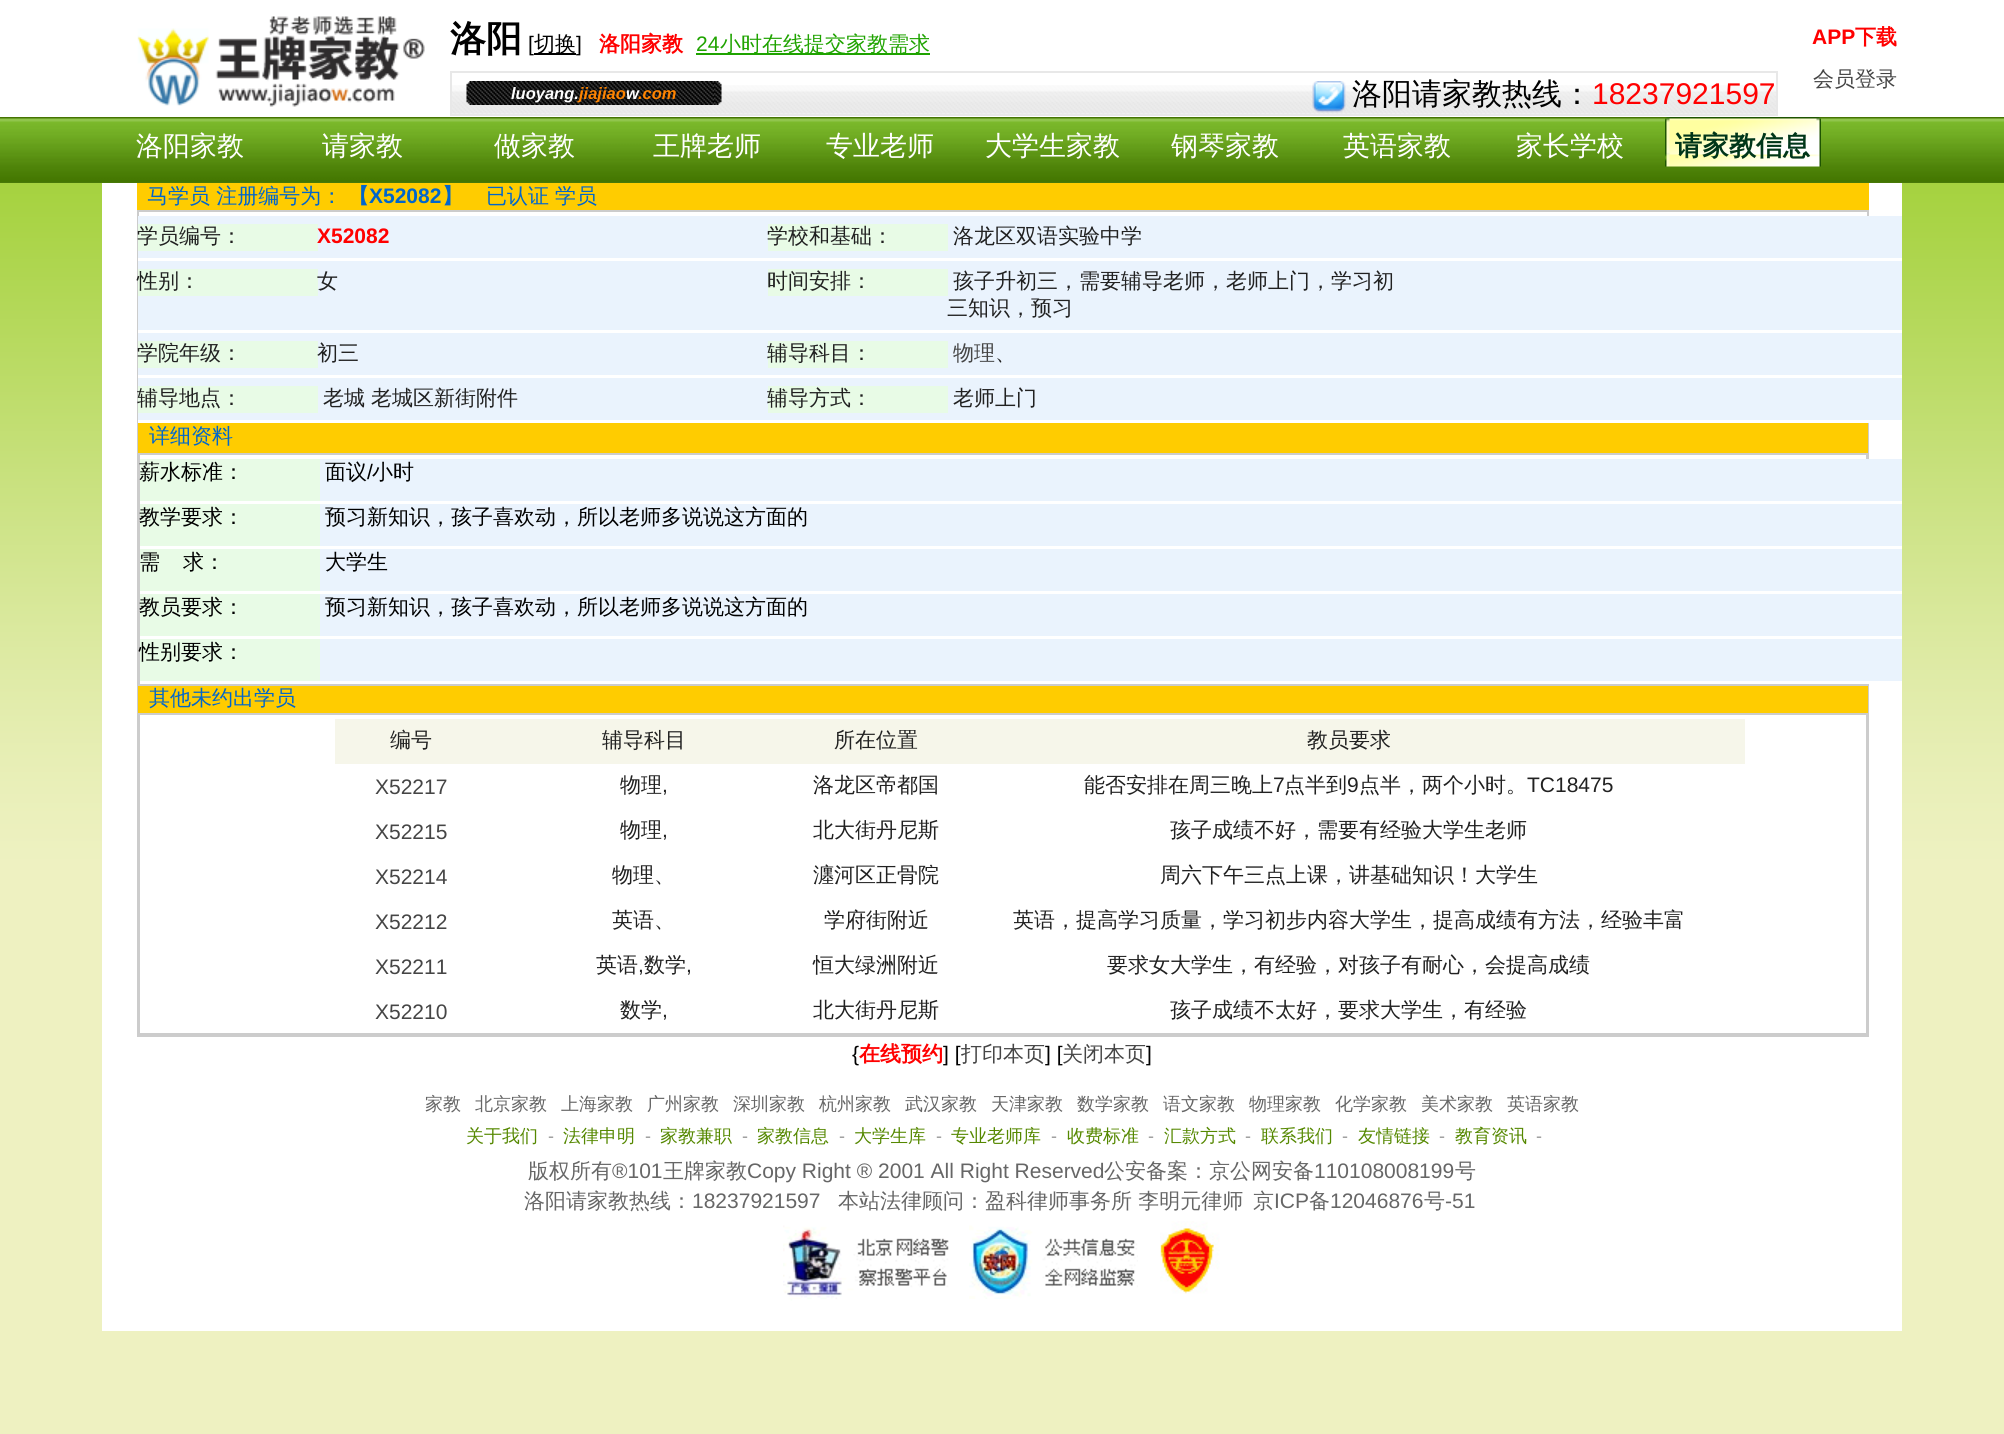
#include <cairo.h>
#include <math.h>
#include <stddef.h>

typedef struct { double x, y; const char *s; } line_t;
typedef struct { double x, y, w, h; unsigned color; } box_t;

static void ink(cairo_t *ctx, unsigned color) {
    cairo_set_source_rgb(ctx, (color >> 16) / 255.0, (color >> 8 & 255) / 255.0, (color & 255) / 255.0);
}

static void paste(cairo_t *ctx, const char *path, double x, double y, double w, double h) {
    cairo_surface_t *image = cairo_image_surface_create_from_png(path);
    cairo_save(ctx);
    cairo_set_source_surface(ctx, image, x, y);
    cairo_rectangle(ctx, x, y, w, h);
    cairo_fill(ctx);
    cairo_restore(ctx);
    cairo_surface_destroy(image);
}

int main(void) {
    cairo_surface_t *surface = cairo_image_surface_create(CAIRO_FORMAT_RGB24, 2004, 1434);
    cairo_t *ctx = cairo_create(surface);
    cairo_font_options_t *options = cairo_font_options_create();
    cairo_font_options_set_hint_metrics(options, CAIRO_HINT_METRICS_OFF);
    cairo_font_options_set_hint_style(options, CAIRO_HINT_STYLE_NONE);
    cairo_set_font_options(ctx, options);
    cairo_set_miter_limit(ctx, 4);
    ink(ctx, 0xFFFFFF);
    cairo_paint(ctx);
    paste(ctx, "media/1.png", 0, 183, 2004, 1251);
    paste(ctx, "media/2.png", 137, 16, 288, 91);
    cairo_select_font_face(ctx, "WenQuanYi Zen Hei", CAIRO_FONT_SLANT_NORMAL, CAIRO_FONT_WEIGHT_BOLD);
    cairo_set_font_size(ctx, 36);
    ink(ctx, 0x000000);
    cairo_move_to(ctx, 450, 51);
    cairo_show_text(ctx, "洛阳");
    cairo_select_font_face(ctx, "Liberation Sans", CAIRO_FONT_SLANT_NORMAL, CAIRO_FONT_WEIGHT_NORMAL);
    cairo_set_font_size(ctx, 21);
    cairo_move_to(ctx, 528, 51);
    cairo_show_text(ctx, "[");
    cairo_rectangle(ctx, 534, 53, 42, 2);
    cairo_fill(ctx);
    cairo_select_font_face(ctx, "WenQuanYi Zen Hei Medium", CAIRO_FONT_SLANT_NORMAL, CAIRO_FONT_WEIGHT_NORMAL);
    cairo_move_to(ctx, 534, 51);
    cairo_show_text(ctx, "切换");
    cairo_select_font_face(ctx, "Liberation Sans", CAIRO_FONT_SLANT_NORMAL, CAIRO_FONT_WEIGHT_NORMAL);
    cairo_move_to(ctx, 576, 51);
    cairo_show_text(ctx, "]");
    cairo_select_font_face(ctx, "WenQuanYi Zen Hei", CAIRO_FONT_SLANT_NORMAL, CAIRO_FONT_WEIGHT_BOLD);
    ink(ctx, 0xFF0000);
    cairo_move_to(ctx, 599, 51);
    cairo_show_text(ctx, "洛阳家教");
    cairo_select_font_face(ctx, "Liberation Sans", CAIRO_FONT_SLANT_NORMAL, CAIRO_FONT_WEIGHT_NORMAL);
    ink(ctx, 0x1FA300);
    cairo_move_to(ctx, 696, 51);
    cairo_show_text(ctx, "24");
    cairo_rectangle(ctx, 696, 53, 234, 2);
    cairo_fill(ctx);
    cairo_select_font_face(ctx, "WenQuanYi Zen Hei Medium", CAIRO_FONT_SLANT_NORMAL, CAIRO_FONT_WEIGHT_NORMAL);
    cairo_move_to(ctx, 720, 51);
    cairo_show_text(ctx, "小时在线提交家教需求");
    paste(ctx, "media/3.png", 452, 85, 1324, 29);
    cairo_rectangle(ctx, 451, 72, 1326, 43);
    ink(ctx, 0xE8E8E8);
    cairo_stroke(ctx);
    paste(ctx, "media/4.png", 466, 81, 256, 24);
    cairo_select_font_face(ctx, "Liberation Sans", CAIRO_FONT_SLANT_ITALIC, CAIRO_FONT_WEIGHT_BOLD);
    cairo_set_font_size(ctx, 16.5);
    ink(ctx, 0xFFFFFF);
    cairo_move_to(ctx, 511, 99);
    cairo_show_text(ctx, "luoyang.");
    ink(ctx, 0xFF8400);
    cairo_move_to(ctx, 579, 99);
    cairo_show_text(ctx, "jiajiao");
    ink(ctx, 0xFFFFFF);
    cairo_move_to(ctx, 626, 99);
    cairo_show_text(ctx, "w");
    ink(ctx, 0xFF8400);
    cairo_move_to(ctx, 638, 99);
    cairo_show_text(ctx, ".com");
    paste(ctx, "media/5.png", 1312, 81, 34, 32);
    cairo_select_font_face(ctx, "WenQuanYi Zen Hei Medium", CAIRO_FONT_SLANT_NORMAL, CAIRO_FONT_WEIGHT_NORMAL);
    cairo_set_font_size(ctx, 30);
    ink(ctx, 0x000000);
    cairo_move_to(ctx, 1352, 104);
    cairo_show_text(ctx, "洛阳请家教热线：");
    cairo_select_font_face(ctx, "Liberation Sans", CAIRO_FONT_SLANT_NORMAL, CAIRO_FONT_WEIGHT_NORMAL);
    ink(ctx, 0xFF0000);
    cairo_move_to(ctx, 1592, 104);
    cairo_show_text(ctx, "18237921597");
    cairo_select_font_face(ctx, "Liberation Sans", CAIRO_FONT_SLANT_NORMAL, CAIRO_FONT_WEIGHT_BOLD);
    cairo_set_font_size(ctx, 21);
    cairo_move_to(ctx, 1812, 44);
    cairo_show_text(ctx, "APP");
    cairo_select_font_face(ctx, "WenQuanYi Zen Hei", CAIRO_FONT_SLANT_NORMAL, CAIRO_FONT_WEIGHT_BOLD);
    cairo_move_to(ctx, 1855, 44);
    cairo_show_text(ctx, "下载");
    cairo_select_font_face(ctx, "WenQuanYi Zen Hei Medium", CAIRO_FONT_SLANT_NORMAL, CAIRO_FONT_WEIGHT_NORMAL);
    ink(ctx, 0x454545);
    cairo_move_to(ctx, 1813, 86);
    cairo_show_text(ctx, "会员登录");
    paste(ctx, "media/6.png", 0, 117, 2004, 66);
    cairo_set_font_size(ctx, 27);
    ink(ctx, 0xFFFFFF);
    {
        static const line_t items[] = {
            {136, 155, "洛阳家教"},
            {322, 155, "请家教"},
            {494, 155, "做家教"},
            {653, 155, "王牌老师"},
            {826, 155, "专业老师"},
            {985, 155, "大学生家教"},
            {1171, 155, "钢琴家教"},
            {1343, 155, "英语家教"},
            {1516, 155, "家长学校"},
        };
        for (size_t i = 0; i < sizeof items / sizeof *items; i++) {
            cairo_move_to(ctx, items[i].x, items[i].y);
            cairo_show_text(ctx, items[i].s);
        }
    }
    paste(ctx, "media/7.png", 1665, 117, 156, 50);
    cairo_select_font_face(ctx, "WenQuanYi Zen Hei", CAIRO_FONT_SLANT_NORMAL, CAIRO_FONT_WEIGHT_BOLD);
    ink(ctx, 0x003619);
    cairo_move_to(ctx, 1675, 155);
    cairo_show_text(ctx, "请家教信息");
    ink(ctx, 0xFFFFFF);
    cairo_rectangle(ctx, 102, 183, 1800, 1148);
    cairo_fill(ctx);
    ink(ctx, 0xFFCC00);
    cairo_rectangle(ctx, 137, 183, 1732, 27);
    cairo_fill(ctx);
    cairo_select_font_face(ctx, "WenQuanYi Zen Hei Medium", CAIRO_FONT_SLANT_NORMAL, CAIRO_FONT_WEIGHT_NORMAL);
    cairo_set_font_size(ctx, 21);
    ink(ctx, 0x0066CC);
    cairo_move_to(ctx, 147, 203);
    cairo_show_text(ctx, "马");
    cairo_move_to(ctx, 168, 203);
    cairo_show_text(ctx, "学员 注册编号为：");
    cairo_select_font_face(ctx, "WenQuanYi Zen Hei", CAIRO_FONT_SLANT_NORMAL, CAIRO_FONT_WEIGHT_BOLD);
    cairo_move_to(ctx, 348, 203);
    cairo_show_text(ctx, "【");
    cairo_select_font_face(ctx, "Liberation Sans", CAIRO_FONT_SLANT_NORMAL, CAIRO_FONT_WEIGHT_BOLD);
    cairo_move_to(ctx, 369, 203);
    cairo_show_text(ctx, "X52082");
    cairo_select_font_face(ctx, "WenQuanYi Zen Hei", CAIRO_FONT_SLANT_NORMAL, CAIRO_FONT_WEIGHT_BOLD);
    cairo_move_to(ctx, 442, 203);
    cairo_show_text(ctx, "】");
    cairo_select_font_face(ctx, "WenQuanYi Zen Hei Medium", CAIRO_FONT_SLANT_NORMAL, CAIRO_FONT_WEIGHT_NORMAL);
    cairo_move_to(ctx, 486, 203);
    cairo_show_text(ctx, "已认证");
    cairo_move_to(ctx, 555, 203);
    cairo_show_text(ctx, "学员");
    cairo_rectangle(ctx, 138, 211, 1730, 825);
    ink(ctx, 0xCCCCCC);
    cairo_stroke(ctx);
    {
        static const box_t items[] = {
            {138, 216, 1764, 42, 0xEAF3FD},
            {138, 258, 1731, 3, 0xFFFFFF},
            {138, 224, 180, 27, 0xE8FBE6},
        };
        for (size_t i = 0; i < sizeof items / sizeof *items; i++) {
            ink(ctx, items[i].color);
            cairo_rectangle(ctx, items[i].x, items[i].y, items[i].w, items[i].h);
            cairo_fill(ctx);
        }
    }
    ink(ctx, 0x212121);
    cairo_move_to(ctx, 137, 243);
    cairo_show_text(ctx, "学员编号：");
    cairo_select_font_face(ctx, "Liberation Sans", CAIRO_FONT_SLANT_NORMAL, CAIRO_FONT_WEIGHT_BOLD);
    ink(ctx, 0xFF0000);
    cairo_move_to(ctx, 317, 243);
    cairo_show_text(ctx, "X52082");
    ink(ctx, 0xE8FBE6);
    cairo_rectangle(ctx, 768, 224, 180, 27);
    cairo_fill(ctx);
    cairo_select_font_face(ctx, "WenQuanYi Zen Hei Medium", CAIRO_FONT_SLANT_NORMAL, CAIRO_FONT_WEIGHT_NORMAL);
    ink(ctx, 0x212121);
    cairo_move_to(ctx, 767, 243);
    cairo_show_text(ctx, "学校和基础：");
    cairo_move_to(ctx, 953, 243);
    cairo_show_text(ctx, "洛龙区双语实验中学");
    {
        static const box_t items[] = {
            {138, 261, 1764, 69, 0xEAF3FD},
            {138, 330, 1731, 3, 0xFFFFFF},
            {138, 269, 180, 27, 0xE8FBE6},
        };
        for (size_t i = 0; i < sizeof items / sizeof *items; i++) {
            ink(ctx, items[i].color);
            cairo_rectangle(ctx, items[i].x, items[i].y, items[i].w, items[i].h);
            cairo_fill(ctx);
        }
    }
    ink(ctx, 0x212121);
    cairo_move_to(ctx, 137, 288);
    cairo_show_text(ctx, "性别：");
    cairo_move_to(ctx, 317, 288);
    cairo_show_text(ctx, "女");
    ink(ctx, 0xE8FBE6);
    cairo_rectangle(ctx, 768, 269, 180, 27);
    cairo_fill(ctx);
    ink(ctx, 0x212121);
    {
        static const line_t items[] = {
            {767, 288, "时间安排："},
            {953, 288, "孩子升初三，需要辅导老师，老师上门，学习初"},
            {947, 315, "三知识，预习"},
        };
        for (size_t i = 0; i < sizeof items / sizeof *items; i++) {
            cairo_move_to(ctx, items[i].x, items[i].y);
            cairo_show_text(ctx, items[i].s);
        }
    }
    {
        static const box_t items[] = {
            {138, 333, 1764, 42, 0xEAF3FD},
            {138, 375, 1731, 3, 0xFFFFFF},
            {138, 341, 180, 27, 0xE8FBE6},
        };
        for (size_t i = 0; i < sizeof items / sizeof *items; i++) {
            ink(ctx, items[i].color);
            cairo_rectangle(ctx, items[i].x, items[i].y, items[i].w, items[i].h);
            cairo_fill(ctx);
        }
    }
    ink(ctx, 0x212121);
    cairo_move_to(ctx, 137, 360);
    cairo_show_text(ctx, "学院年级：");
    cairo_move_to(ctx, 317, 360);
    cairo_show_text(ctx, "初三");
    ink(ctx, 0xE8FBE6);
    cairo_rectangle(ctx, 768, 341, 180, 27);
    cairo_fill(ctx);
    ink(ctx, 0x212121);
    cairo_move_to(ctx, 767, 360);
    cairo_show_text(ctx, "辅导科目：");
    ink(ctx, 0x454545);
    cairo_move_to(ctx, 953, 360);
    cairo_show_text(ctx, "物理");
    ink(ctx, 0x212121);
    cairo_move_to(ctx, 995, 360);
    cairo_show_text(ctx, "、");
    {
        static const box_t items[] = {
            {138, 378, 1764, 42, 0xEAF3FD},
            {138, 420, 1731, 3, 0xFFFFFF},
            {138, 386, 180, 27, 0xE8FBE6},
        };
        for (size_t i = 0; i < sizeof items / sizeof *items; i++) {
            ink(ctx, items[i].color);
            cairo_rectangle(ctx, items[i].x, items[i].y, items[i].w, items[i].h);
            cairo_fill(ctx);
        }
    }
    ink(ctx, 0x212121);
    {
        static const line_t items[] = {
            {137, 405, "辅导地点："},
            {323, 405, "老城"},
            {371, 405, "老城区新街附件"},
        };
        for (size_t i = 0; i < sizeof items / sizeof *items; i++) {
            cairo_move_to(ctx, items[i].x, items[i].y);
            cairo_show_text(ctx, items[i].s);
        }
    }
    ink(ctx, 0xE8FBE6);
    cairo_rectangle(ctx, 768, 386, 180, 27);
    cairo_fill(ctx);
    ink(ctx, 0x212121);
    cairo_move_to(ctx, 767, 405);
    cairo_show_text(ctx, "辅导方式：");
    cairo_move_to(ctx, 953, 405);
    cairo_show_text(ctx, "老师上门");
    ink(ctx, 0xFFCC00);
    cairo_rectangle(ctx, 138, 423, 1730, 30);
    cairo_fill(ctx);
    ink(ctx, 0x0066CC);
    cairo_move_to(ctx, 149, 443);
    cairo_show_text(ctx, "详细资料");
    cairo_rectangle(ctx, 139, 454, 1728, 231);
    ink(ctx, 0xCCCCCC);
    cairo_stroke(ctx);
    {
        static const box_t items[] = {
            {320, 459, 1582, 42, 0xEAF3FD},
            {1866, 501, 3, 3, 0xFFFFFF},
            {140, 459, 180, 42, 0xE8FBE6},
        };
        for (size_t i = 0; i < sizeof items / sizeof *items; i++) {
            ink(ctx, items[i].color);
            cairo_rectangle(ctx, items[i].x, items[i].y, items[i].w, items[i].h);
            cairo_fill(ctx);
        }
    }
    ink(ctx, 0x000000);
    cairo_move_to(ctx, 139, 479);
    cairo_show_text(ctx, "薪水标准：");
    cairo_move_to(ctx, 325, 479);
    cairo_show_text(ctx, "面议");
    cairo_select_font_face(ctx, "Liberation Sans", CAIRO_FONT_SLANT_NORMAL, CAIRO_FONT_WEIGHT_NORMAL);
    cairo_move_to(ctx, 367, 479);
    cairo_show_text(ctx, "/");
    cairo_select_font_face(ctx, "WenQuanYi Zen Hei Medium", CAIRO_FONT_SLANT_NORMAL, CAIRO_FONT_WEIGHT_NORMAL);
    cairo_move_to(ctx, 372, 479);
    cairo_show_text(ctx, "小时");
    {
        static const box_t items[] = {
            {320, 504, 1582, 42, 0xEAF3FD},
            {1866, 546, 3, 3, 0xFFFFFF},
            {140, 504, 180, 42, 0xE8FBE6},
        };
        for (size_t i = 0; i < sizeof items / sizeof *items; i++) {
            ink(ctx, items[i].color);
            cairo_rectangle(ctx, items[i].x, items[i].y, items[i].w, items[i].h);
            cairo_fill(ctx);
        }
    }
    ink(ctx, 0x000000);
    cairo_move_to(ctx, 139, 524);
    cairo_show_text(ctx, "教学要求：");
    cairo_move_to(ctx, 325, 524);
    cairo_show_text(ctx, "预习新知识，孩子喜欢动，所以老师多说说这方面的");
    {
        static const box_t items[] = {
            {320, 549, 1582, 42, 0xEAF3FD},
            {1866, 591, 3, 3, 0xFFFFFF},
            {140, 549, 180, 42, 0xE8FBE6},
        };
        for (size_t i = 0; i < sizeof items / sizeof *items; i++) {
            ink(ctx, items[i].color);
            cairo_rectangle(ctx, items[i].x, items[i].y, items[i].w, items[i].h);
            cairo_fill(ctx);
        }
    }
    ink(ctx, 0x000000);
    {
        static const line_t items[] = {
            {139, 569, "需"},
            {183, 569, "求："},
            {325, 569, "大学生"},
        };
        for (size_t i = 0; i < sizeof items / sizeof *items; i++) {
            cairo_move_to(ctx, items[i].x, items[i].y);
            cairo_show_text(ctx, items[i].s);
        }
    }
    {
        static const box_t items[] = {
            {320, 594, 1582, 42, 0xEAF3FD},
            {1866, 636, 3, 3, 0xFFFFFF},
            {140, 594, 180, 42, 0xE8FBE6},
        };
        for (size_t i = 0; i < sizeof items / sizeof *items; i++) {
            ink(ctx, items[i].color);
            cairo_rectangle(ctx, items[i].x, items[i].y, items[i].w, items[i].h);
            cairo_fill(ctx);
        }
    }
    ink(ctx, 0x000000);
    cairo_move_to(ctx, 139, 614);
    cairo_show_text(ctx, "教员要求：");
    cairo_move_to(ctx, 325, 614);
    cairo_show_text(ctx, "预习新知识，孩子喜欢动，所以老师多说说这方面的");
    {
        static const box_t items[] = {
            {320, 639, 1582, 42, 0xEAF3FD},
            {1866, 681, 3, 3, 0xFFFFFF},
            {140, 639, 180, 42, 0xE8FBE6},
        };
        for (size_t i = 0; i < sizeof items / sizeof *items; i++) {
            ink(ctx, items[i].color);
            cairo_rectangle(ctx, items[i].x, items[i].y, items[i].w, items[i].h);
            cairo_fill(ctx);
        }
    }
    ink(ctx, 0x000000);
    cairo_move_to(ctx, 139, 659);
    cairo_show_text(ctx, "性别要求：");
    ink(ctx, 0xFFCC00);
    cairo_rectangle(ctx, 138, 686, 1730, 27);
    cairo_fill(ctx);
    ink(ctx, 0x0066CC);
    cairo_move_to(ctx, 149, 705);
    cairo_show_text(ctx, "其他未约出学员");
    cairo_rectangle(ctx, 139, 714, 1728, 320);
    ink(ctx, 0xCCCCCC);
    cairo_stroke(ctx);
    ink(ctx, 0xF6F6EA);
    cairo_rectangle(ctx, 335, 719, 1410, 45);
    cairo_fill(ctx);
    ink(ctx, 0x212121);
    {
        static const line_t items[] = {
            {390, 747, "编号"},
            {602, 747, "辅导科目"},
            {834, 747, "所在位置"},
            {1307, 747, "教员要求"},
        };
        for (size_t i = 0; i < sizeof items / sizeof *items; i++) {
            cairo_move_to(ctx, items[i].x, items[i].y);
            cairo_show_text(ctx, items[i].s);
        }
    }
    cairo_select_font_face(ctx, "Liberation Sans", CAIRO_FONT_SLANT_NORMAL, CAIRO_FONT_WEIGHT_NORMAL);
    ink(ctx, 0x454545);
    cairo_move_to(ctx, 375, 794);
    cairo_show_text(ctx, "X52217");
    cairo_select_font_face(ctx, "WenQuanYi Zen Hei Medium", CAIRO_FONT_SLANT_NORMAL, CAIRO_FONT_WEIGHT_NORMAL);
    ink(ctx, 0x212121);
    cairo_move_to(ctx, 620, 792);
    cairo_show_text(ctx, "物理");
    cairo_select_font_face(ctx, "Liberation Sans", CAIRO_FONT_SLANT_NORMAL, CAIRO_FONT_WEIGHT_NORMAL);
    cairo_move_to(ctx, 662, 792);
    cairo_show_text(ctx, ",");
    cairo_select_font_face(ctx, "WenQuanYi Zen Hei Medium", CAIRO_FONT_SLANT_NORMAL, CAIRO_FONT_WEIGHT_NORMAL);
    cairo_move_to(ctx, 813, 792);
    cairo_show_text(ctx, "洛龙区帝都国");
    cairo_move_to(ctx, 1084, 792);
    cairo_show_text(ctx, "能否安排在周三晚上");
    cairo_select_font_face(ctx, "Liberation Sans", CAIRO_FONT_SLANT_NORMAL, CAIRO_FONT_WEIGHT_NORMAL);
    cairo_move_to(ctx, 1273, 792);
    cairo_show_text(ctx, "7");
    cairo_select_font_face(ctx, "WenQuanYi Zen Hei Medium", CAIRO_FONT_SLANT_NORMAL, CAIRO_FONT_WEIGHT_NORMAL);
    cairo_move_to(ctx, 1284, 792);
    cairo_show_text(ctx, "点半到");
    cairo_select_font_face(ctx, "Liberation Sans", CAIRO_FONT_SLANT_NORMAL, CAIRO_FONT_WEIGHT_NORMAL);
    cairo_move_to(ctx, 1347, 792);
    cairo_show_text(ctx, "9");
    cairo_select_font_face(ctx, "WenQuanYi Zen Hei Medium", CAIRO_FONT_SLANT_NORMAL, CAIRO_FONT_WEIGHT_NORMAL);
    cairo_move_to(ctx, 1359, 792);
    cairo_show_text(ctx, "点半，两个小时。");
    cairo_select_font_face(ctx, "Liberation Sans", CAIRO_FONT_SLANT_NORMAL, CAIRO_FONT_WEIGHT_NORMAL);
    cairo_move_to(ctx, 1527, 792);
    cairo_show_text(ctx, "TC18475");
    ink(ctx, 0x454545);
    cairo_move_to(ctx, 375, 839);
    cairo_show_text(ctx, "X52215");
    cairo_select_font_face(ctx, "WenQuanYi Zen Hei Medium", CAIRO_FONT_SLANT_NORMAL, CAIRO_FONT_WEIGHT_NORMAL);
    ink(ctx, 0x212121);
    cairo_move_to(ctx, 620, 837);
    cairo_show_text(ctx, "物理");
    cairo_select_font_face(ctx, "Liberation Sans", CAIRO_FONT_SLANT_NORMAL, CAIRO_FONT_WEIGHT_NORMAL);
    cairo_move_to(ctx, 662, 837);
    cairo_show_text(ctx, ",");
    cairo_select_font_face(ctx, "WenQuanYi Zen Hei Medium", CAIRO_FONT_SLANT_NORMAL, CAIRO_FONT_WEIGHT_NORMAL);
    cairo_move_to(ctx, 813, 837);
    cairo_show_text(ctx, "北大街丹尼斯");
    cairo_move_to(ctx, 1170, 837);
    cairo_show_text(ctx, "孩子成绩不好，需要有经验大学生老师");
    cairo_select_font_face(ctx, "Liberation Sans", CAIRO_FONT_SLANT_NORMAL, CAIRO_FONT_WEIGHT_NORMAL);
    ink(ctx, 0x454545);
    cairo_move_to(ctx, 375, 884);
    cairo_show_text(ctx, "X52214");
    cairo_select_font_face(ctx, "WenQuanYi Zen Hei Medium", CAIRO_FONT_SLANT_NORMAL, CAIRO_FONT_WEIGHT_NORMAL);
    ink(ctx, 0x212121);
    {
        static const line_t items[] = {
            {612, 882, "物理、"},
            {813, 882, "瀍河区正骨院"},
            {1160, 882, "周六下午三点上课，讲基础知识！大学生"},
        };
        for (size_t i = 0; i < sizeof items / sizeof *items; i++) {
            cairo_move_to(ctx, items[i].x, items[i].y);
            cairo_show_text(ctx, items[i].s);
        }
    }
    cairo_select_font_face(ctx, "Liberation Sans", CAIRO_FONT_SLANT_NORMAL, CAIRO_FONT_WEIGHT_NORMAL);
    ink(ctx, 0x454545);
    cairo_move_to(ctx, 375, 929);
    cairo_show_text(ctx, "X52212");
    cairo_select_font_face(ctx, "WenQuanYi Zen Hei Medium", CAIRO_FONT_SLANT_NORMAL, CAIRO_FONT_WEIGHT_NORMAL);
    ink(ctx, 0x212121);
    {
        static const line_t items[] = {
            {612, 927, "英语、"},
            {824, 927, "学府街附近"},
            {1013, 927, "英语，提高学习质量，学习初步内容大学生，提高成绩有方法，经验丰富"},
        };
        for (size_t i = 0; i < sizeof items / sizeof *items; i++) {
            cairo_move_to(ctx, items[i].x, items[i].y);
            cairo_show_text(ctx, items[i].s);
        }
    }
    cairo_select_font_face(ctx, "Liberation Sans", CAIRO_FONT_SLANT_NORMAL, CAIRO_FONT_WEIGHT_NORMAL);
    ink(ctx, 0x454545);
    cairo_move_to(ctx, 375, 974);
    cairo_show_text(ctx, "X52211");
    cairo_select_font_face(ctx, "WenQuanYi Zen Hei Medium", CAIRO_FONT_SLANT_NORMAL, CAIRO_FONT_WEIGHT_NORMAL);
    ink(ctx, 0x212121);
    cairo_move_to(ctx, 596, 972);
    cairo_show_text(ctx, "英语");
    cairo_select_font_face(ctx, "Liberation Sans", CAIRO_FONT_SLANT_NORMAL, CAIRO_FONT_WEIGHT_NORMAL);
    cairo_move_to(ctx, 638, 972);
    cairo_show_text(ctx, ",");
    cairo_select_font_face(ctx, "WenQuanYi Zen Hei Medium", CAIRO_FONT_SLANT_NORMAL, CAIRO_FONT_WEIGHT_NORMAL);
    cairo_move_to(ctx, 644, 972);
    cairo_show_text(ctx, "数学");
    cairo_select_font_face(ctx, "Liberation Sans", CAIRO_FONT_SLANT_NORMAL, CAIRO_FONT_WEIGHT_NORMAL);
    cairo_move_to(ctx, 686, 972);
    cairo_show_text(ctx, ",");
    cairo_select_font_face(ctx, "WenQuanYi Zen Hei Medium", CAIRO_FONT_SLANT_NORMAL, CAIRO_FONT_WEIGHT_NORMAL);
    cairo_move_to(ctx, 813, 972);
    cairo_show_text(ctx, "恒大绿洲附近");
    cairo_move_to(ctx, 1107, 972);
    cairo_show_text(ctx, "要求女大学生，有经验，对孩子有耐心，会提高成绩");
    cairo_select_font_face(ctx, "Liberation Sans", CAIRO_FONT_SLANT_NORMAL, CAIRO_FONT_WEIGHT_NORMAL);
    ink(ctx, 0x454545);
    cairo_move_to(ctx, 375, 1019);
    cairo_show_text(ctx, "X52210");
    cairo_select_font_face(ctx, "WenQuanYi Zen Hei Medium", CAIRO_FONT_SLANT_NORMAL, CAIRO_FONT_WEIGHT_NORMAL);
    ink(ctx, 0x212121);
    cairo_move_to(ctx, 620, 1017);
    cairo_show_text(ctx, "数学");
    cairo_select_font_face(ctx, "Liberation Sans", CAIRO_FONT_SLANT_NORMAL, CAIRO_FONT_WEIGHT_NORMAL);
    cairo_move_to(ctx, 662, 1017);
    cairo_show_text(ctx, ",");
    cairo_select_font_face(ctx, "WenQuanYi Zen Hei Medium", CAIRO_FONT_SLANT_NORMAL, CAIRO_FONT_WEIGHT_NORMAL);
    cairo_move_to(ctx, 813, 1017);
    cairo_show_text(ctx, "北大街丹尼斯");
    cairo_move_to(ctx, 1170, 1017);
    cairo_show_text(ctx, "孩子成绩不太好，要求大学生，有经验");
    cairo_select_font_face(ctx, "Liberation Sans", CAIRO_FONT_SLANT_NORMAL, CAIRO_FONT_WEIGHT_NORMAL);
    ink(ctx, 0x000000);
    cairo_move_to(ctx, 852, 1061);
    cairo_show_text(ctx, "{");
    cairo_select_font_face(ctx, "WenQuanYi Zen Hei", CAIRO_FONT_SLANT_NORMAL, CAIRO_FONT_WEIGHT_BOLD);
    ink(ctx, 0xFF0000);
    cairo_move_to(ctx, 859, 1061);
    cairo_show_text(ctx, "在线预约");
    cairo_select_font_face(ctx, "Liberation Sans", CAIRO_FONT_SLANT_NORMAL, CAIRO_FONT_WEIGHT_NORMAL);
    ink(ctx, 0x000000);
    cairo_move_to(ctx, 943, 1061);
    cairo_show_text(ctx, "] [");
    cairo_select_font_face(ctx, "WenQuanYi Zen Hei Medium", CAIRO_FONT_SLANT_NORMAL, CAIRO_FONT_WEIGHT_NORMAL);
    ink(ctx, 0x454545);
    cairo_move_to(ctx, 961, 1061);
    cairo_show_text(ctx, "打印本页");
    cairo_select_font_face(ctx, "Liberation Sans", CAIRO_FONT_SLANT_NORMAL, CAIRO_FONT_WEIGHT_NORMAL);
    ink(ctx, 0x000000);
    cairo_move_to(ctx, 1045, 1061);
    cairo_show_text(ctx, "] [");
    cairo_select_font_face(ctx, "WenQuanYi Zen Hei Medium", CAIRO_FONT_SLANT_NORMAL, CAIRO_FONT_WEIGHT_NORMAL);
    ink(ctx, 0x454545);
    cairo_move_to(ctx, 1062, 1061);
    cairo_show_text(ctx, "关闭本页");
    cairo_select_font_face(ctx, "Liberation Sans", CAIRO_FONT_SLANT_NORMAL, CAIRO_FONT_WEIGHT_NORMAL);
    ink(ctx, 0x000000);
    cairo_move_to(ctx, 1146, 1061);
    cairo_show_text(ctx, "]");
    cairo_select_font_face(ctx, "WenQuanYi Zen Hei Medium", CAIRO_FONT_SLANT_NORMAL, CAIRO_FONT_WEIGHT_NORMAL);
    cairo_set_font_size(ctx, 18);
    ink(ctx, 0x666666);
    {
        static const line_t items[] = {
            {425, 1110, "家教"},
            {475, 1110, "北京家教"},
            {561, 1110, "上海家教"},
            {647, 1110, "广州家教"},
            {733, 1110, "深圳家教"},
            {819, 1110, "杭州家教"},
            {905, 1110, "武汉家教"},
            {991, 1110, "天津家教"},
            {1077, 1110, "数学家教"},
            {1163, 1110, "语文家教"},
            {1249, 1110, "物理家教"},
            {1335, 1110, "化学家教"},
            {1421, 1110, "美术家教"},
            {1507, 1110, "英语家教"},
        };
        for (size_t i = 0; i < sizeof items / sizeof *items; i++) {
            cairo_move_to(ctx, items[i].x, items[i].y);
            cairo_show_text(ctx, items[i].s);
        }
    }
    ink(ctx, 0x558800);
    cairo_move_to(ctx, 466, 1142);
    cairo_show_text(ctx, "关于我们");
    cairo_select_font_face(ctx, "Liberation Sans", CAIRO_FONT_SLANT_NORMAL, CAIRO_FONT_WEIGHT_NORMAL);
    ink(ctx, 0x999999);
    cairo_move_to(ctx, 548, 1142);
    cairo_show_text(ctx, "-");
    cairo_select_font_face(ctx, "WenQuanYi Zen Hei Medium", CAIRO_FONT_SLANT_NORMAL, CAIRO_FONT_WEIGHT_NORMAL);
    ink(ctx, 0x558800);
    cairo_move_to(ctx, 563, 1142);
    cairo_show_text(ctx, "法律申明");
    cairo_select_font_face(ctx, "Liberation Sans", CAIRO_FONT_SLANT_NORMAL, CAIRO_FONT_WEIGHT_NORMAL);
    ink(ctx, 0x999999);
    cairo_move_to(ctx, 645, 1142);
    cairo_show_text(ctx, "-");
    cairo_select_font_face(ctx, "WenQuanYi Zen Hei Medium", CAIRO_FONT_SLANT_NORMAL, CAIRO_FONT_WEIGHT_NORMAL);
    ink(ctx, 0x558800);
    cairo_move_to(ctx, 660, 1142);
    cairo_show_text(ctx, "家教兼职");
    cairo_select_font_face(ctx, "Liberation Sans", CAIRO_FONT_SLANT_NORMAL, CAIRO_FONT_WEIGHT_NORMAL);
    ink(ctx, 0x999999);
    cairo_move_to(ctx, 742, 1142);
    cairo_show_text(ctx, "-");
    cairo_select_font_face(ctx, "WenQuanYi Zen Hei Medium", CAIRO_FONT_SLANT_NORMAL, CAIRO_FONT_WEIGHT_NORMAL);
    ink(ctx, 0x558800);
    cairo_move_to(ctx, 757, 1142);
    cairo_show_text(ctx, "家教信息");
    cairo_select_font_face(ctx, "Liberation Sans", CAIRO_FONT_SLANT_NORMAL, CAIRO_FONT_WEIGHT_NORMAL);
    ink(ctx, 0x999999);
    cairo_move_to(ctx, 839, 1142);
    cairo_show_text(ctx, "-");
    cairo_select_font_face(ctx, "WenQuanYi Zen Hei Medium", CAIRO_FONT_SLANT_NORMAL, CAIRO_FONT_WEIGHT_NORMAL);
    ink(ctx, 0x558800);
    cairo_move_to(ctx, 854, 1142);
    cairo_show_text(ctx, "大学生库");
    cairo_select_font_face(ctx, "Liberation Sans", CAIRO_FONT_SLANT_NORMAL, CAIRO_FONT_WEIGHT_NORMAL);
    ink(ctx, 0x999999);
    cairo_move_to(ctx, 936, 1142);
    cairo_show_text(ctx, "-");
    cairo_select_font_face(ctx, "WenQuanYi Zen Hei Medium", CAIRO_FONT_SLANT_NORMAL, CAIRO_FONT_WEIGHT_NORMAL);
    ink(ctx, 0x558800);
    cairo_move_to(ctx, 951, 1142);
    cairo_show_text(ctx, "专业老师库");
    cairo_select_font_face(ctx, "Liberation Sans", CAIRO_FONT_SLANT_NORMAL, CAIRO_FONT_WEIGHT_NORMAL);
    ink(ctx, 0x999999);
    cairo_move_to(ctx, 1051, 1142);
    cairo_show_text(ctx, "-");
    cairo_select_font_face(ctx, "WenQuanYi Zen Hei Medium", CAIRO_FONT_SLANT_NORMAL, CAIRO_FONT_WEIGHT_NORMAL);
    ink(ctx, 0x558800);
    cairo_move_to(ctx, 1067, 1142);
    cairo_show_text(ctx, "收费标准");
    cairo_select_font_face(ctx, "Liberation Sans", CAIRO_FONT_SLANT_NORMAL, CAIRO_FONT_WEIGHT_NORMAL);
    ink(ctx, 0x999999);
    cairo_move_to(ctx, 1148, 1142);
    cairo_show_text(ctx, "-");
    cairo_select_font_face(ctx, "WenQuanYi Zen Hei Medium", CAIRO_FONT_SLANT_NORMAL, CAIRO_FONT_WEIGHT_NORMAL);
    ink(ctx, 0x558800);
    cairo_move_to(ctx, 1164, 1142);
    cairo_show_text(ctx, "汇款方式");
    cairo_select_font_face(ctx, "Liberation Sans", CAIRO_FONT_SLANT_NORMAL, CAIRO_FONT_WEIGHT_NORMAL);
    ink(ctx, 0x999999);
    cairo_move_to(ctx, 1245, 1142);
    cairo_show_text(ctx, "-");
    cairo_select_font_face(ctx, "WenQuanYi Zen Hei Medium", CAIRO_FONT_SLANT_NORMAL, CAIRO_FONT_WEIGHT_NORMAL);
    ink(ctx, 0x558800);
    cairo_move_to(ctx, 1261, 1142);
    cairo_show_text(ctx, "联系我们");
    cairo_select_font_face(ctx, "Liberation Sans", CAIRO_FONT_SLANT_NORMAL, CAIRO_FONT_WEIGHT_NORMAL);
    ink(ctx, 0x999999);
    cairo_move_to(ctx, 1342, 1142);
    cairo_show_text(ctx, "-");
    cairo_select_font_face(ctx, "WenQuanYi Zen Hei Medium", CAIRO_FONT_SLANT_NORMAL, CAIRO_FONT_WEIGHT_NORMAL);
    ink(ctx, 0x558800);
    cairo_move_to(ctx, 1358, 1142);
    cairo_show_text(ctx, "友情链接");
    cairo_select_font_face(ctx, "Liberation Sans", CAIRO_FONT_SLANT_NORMAL, CAIRO_FONT_WEIGHT_NORMAL);
    ink(ctx, 0x999999);
    cairo_move_to(ctx, 1439, 1142);
    cairo_show_text(ctx, "-");
    cairo_select_font_face(ctx, "WenQuanYi Zen Hei Medium", CAIRO_FONT_SLANT_NORMAL, CAIRO_FONT_WEIGHT_NORMAL);
    ink(ctx, 0x558800);
    cairo_move_to(ctx, 1455, 1142);
    cairo_show_text(ctx, "教育资讯");
    cairo_select_font_face(ctx, "Liberation Sans", CAIRO_FONT_SLANT_NORMAL, CAIRO_FONT_WEIGHT_NORMAL);
    ink(ctx, 0x999999);
    cairo_move_to(ctx, 1536, 1142);
    cairo_show_text(ctx, "-");
    cairo_select_font_face(ctx, "WenQuanYi Zen Hei Medium", CAIRO_FONT_SLANT_NORMAL, CAIRO_FONT_WEIGHT_NORMAL);
    cairo_set_font_size(ctx, 21);
    ink(ctx, 0x666666);
    cairo_move_to(ctx, 528, 1178);
    cairo_show_text(ctx, "版权所有");
    cairo_select_font_face(ctx, "Liberation Sans", CAIRO_FONT_SLANT_NORMAL, CAIRO_FONT_WEIGHT_NORMAL);
    cairo_move_to(ctx, 612, 1178);
    cairo_show_text(ctx, "®101");
    cairo_select_font_face(ctx, "WenQuanYi Zen Hei Medium", CAIRO_FONT_SLANT_NORMAL, CAIRO_FONT_WEIGHT_NORMAL);
    cairo_move_to(ctx, 663, 1178);
    cairo_show_text(ctx, "王牌家教");
    cairo_select_font_face(ctx, "Liberation Sans", CAIRO_FONT_SLANT_NORMAL, CAIRO_FONT_WEIGHT_NORMAL);
    cairo_move_to(ctx, 747, 1178);
    cairo_show_text(ctx, "Copy Right ® 2001 All Right Reserved");
    cairo_select_font_face(ctx, "WenQuanYi Zen Hei Medium", CAIRO_FONT_SLANT_NORMAL, CAIRO_FONT_WEIGHT_NORMAL);
    cairo_move_to(ctx, 1104, 1178);
    cairo_show_text(ctx, "公安备案：京公网安备");
    cairo_select_font_face(ctx, "Liberation Sans", CAIRO_FONT_SLANT_NORMAL, CAIRO_FONT_WEIGHT_NORMAL);
    cairo_move_to(ctx, 1314, 1178);
    cairo_show_text(ctx, "110108008199");
    cairo_select_font_face(ctx, "WenQuanYi Zen Hei Medium", CAIRO_FONT_SLANT_NORMAL, CAIRO_FONT_WEIGHT_NORMAL);
    cairo_move_to(ctx, 1455, 1178);
    cairo_show_text(ctx, "号");
    cairo_move_to(ctx, 524, 1208);
    cairo_show_text(ctx, "洛阳请家教热线：");
    cairo_select_font_face(ctx, "Liberation Sans", CAIRO_FONT_SLANT_NORMAL, CAIRO_FONT_WEIGHT_NORMAL);
    cairo_move_to(ctx, 692, 1208);
    cairo_show_text(ctx, "18237921597");
    cairo_select_font_face(ctx, "WenQuanYi Zen Hei Medium", CAIRO_FONT_SLANT_NORMAL, CAIRO_FONT_WEIGHT_NORMAL);
    cairo_move_to(ctx, 838, 1208);
    cairo_show_text(ctx, "本站法律顾问：盈科律师事务所 李明元律师");
    cairo_move_to(ctx, 1253, 1208);
    cairo_show_text(ctx, "京");
    cairo_select_font_face(ctx, "Liberation Sans", CAIRO_FONT_SLANT_NORMAL, CAIRO_FONT_WEIGHT_NORMAL);
    cairo_move_to(ctx, 1274, 1208);
    cairo_show_text(ctx, "ICP");
    cairo_select_font_face(ctx, "WenQuanYi Zen Hei Medium", CAIRO_FONT_SLANT_NORMAL, CAIRO_FONT_WEIGHT_NORMAL);
    cairo_move_to(ctx, 1309, 1208);
    cairo_show_text(ctx, "备");
    cairo_select_font_face(ctx, "Liberation Sans", CAIRO_FONT_SLANT_NORMAL, CAIRO_FONT_WEIGHT_NORMAL);
    cairo_move_to(ctx, 1330, 1208);
    cairo_show_text(ctx, "12046876");
    cairo_select_font_face(ctx, "WenQuanYi Zen Hei Medium", CAIRO_FONT_SLANT_NORMAL, CAIRO_FONT_WEIGHT_NORMAL);
    cairo_move_to(ctx, 1424, 1208);
    cairo_show_text(ctx, "号");
    cairo_select_font_face(ctx, "Liberation Sans", CAIRO_FONT_SLANT_NORMAL, CAIRO_FONT_WEIGHT_NORMAL);
    cairo_move_to(ctx, 1445, 1208);
    cairo_show_text(ctx, "-51");
    paste(ctx, "media/8.png", 783, 1225, 166, 76);
    paste(ctx, "media/9.png", 969, 1225, 169, 74);
    paste(ctx, "media/10.png", 1160, 1221, 60, 73);
    cairo_surface_write_to_png(surface, "image.png");
    cairo_font_options_destroy(options);
    cairo_destroy(ctx);
    cairo_surface_destroy(surface);
    return 0;
}
